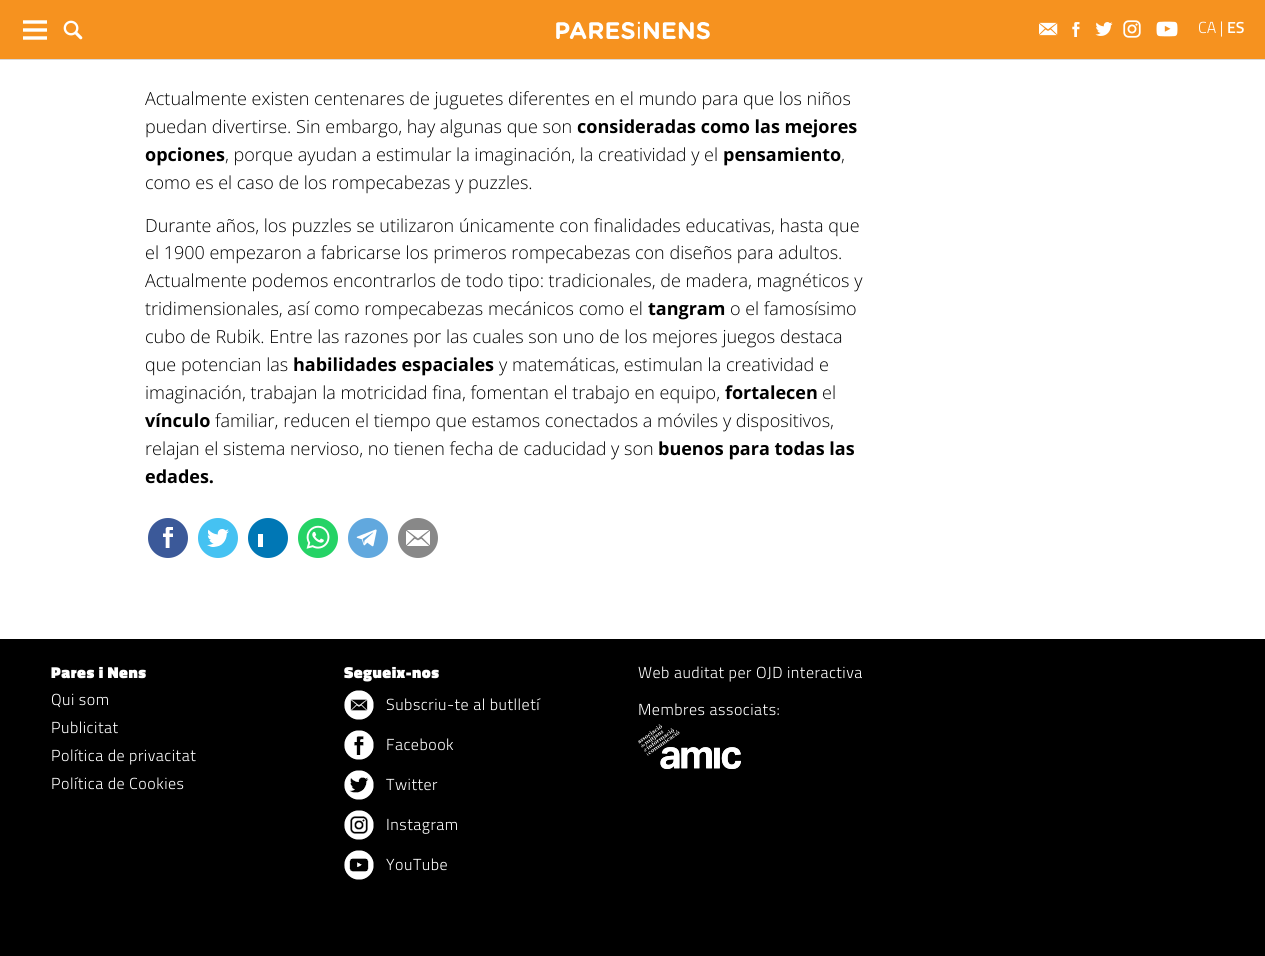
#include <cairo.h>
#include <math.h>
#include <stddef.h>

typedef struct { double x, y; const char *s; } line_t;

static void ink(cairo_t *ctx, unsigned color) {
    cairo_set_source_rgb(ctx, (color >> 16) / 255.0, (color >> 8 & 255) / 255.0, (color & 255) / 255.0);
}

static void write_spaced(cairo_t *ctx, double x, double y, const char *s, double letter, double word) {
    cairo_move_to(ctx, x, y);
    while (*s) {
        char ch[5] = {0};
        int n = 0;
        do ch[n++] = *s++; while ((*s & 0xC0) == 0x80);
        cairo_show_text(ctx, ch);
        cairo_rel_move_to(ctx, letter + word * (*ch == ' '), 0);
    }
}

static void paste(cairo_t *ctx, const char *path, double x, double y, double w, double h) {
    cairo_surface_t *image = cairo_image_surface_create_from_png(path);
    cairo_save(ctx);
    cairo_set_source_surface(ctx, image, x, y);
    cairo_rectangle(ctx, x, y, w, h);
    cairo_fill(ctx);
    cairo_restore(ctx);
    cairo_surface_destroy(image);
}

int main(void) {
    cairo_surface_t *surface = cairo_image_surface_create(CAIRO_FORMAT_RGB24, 1265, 956);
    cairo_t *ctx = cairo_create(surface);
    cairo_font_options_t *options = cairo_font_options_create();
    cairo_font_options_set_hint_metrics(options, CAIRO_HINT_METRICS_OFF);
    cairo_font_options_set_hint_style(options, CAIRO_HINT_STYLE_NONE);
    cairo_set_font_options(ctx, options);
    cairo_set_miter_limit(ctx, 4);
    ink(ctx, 0xFFFFFF);
    cairo_paint(ctx);
    ink(ctx, 0xF6921F);
    cairo_rectangle(ctx, 0, 0, 1265, 59);
    cairo_fill(ctx);
    ink(ctx, 0xD9D9DB);
    cairo_rectangle(ctx, 0, 59, 1265, 1);
    cairo_fill(ctx);
    paste(ctx, "media/1.png", 556, 21, 154, 19);
    cairo_save(ctx);
    cairo_rectangle(ctx, 23, 20, 24, 20);
    cairo_clip(ctx);
    cairo_new_path(ctx);
    cairo_move_to(ctx, 23, 20);
    cairo_line_to(ctx, 23, 40);
    cairo_line_to(ctx, 47.5, 40);
    cairo_line_to(ctx, 47.5, 20);
    cairo_close_path(ctx);
    cairo_clip(ctx);
    cairo_new_path(ctx);
    cairo_move_to(ctx, 23, 22);
    cairo_line_to(ctx, 47.5, 22);
    ink(ctx, 0xFFFFFF);
    cairo_set_line_width(ctx, 3.4);
    cairo_stroke(ctx);
    cairo_restore(ctx);
    cairo_save(ctx);
    cairo_rectangle(ctx, 23, 20, 24, 20);
    cairo_clip(ctx);
    cairo_new_path(ctx);
    cairo_move_to(ctx, 23, 30);
    cairo_line_to(ctx, 47.5, 30);
    ink(ctx, 0xFFFFFF);
    cairo_set_line_width(ctx, 3.4);
    cairo_stroke(ctx);
    cairo_restore(ctx);
    cairo_save(ctx);
    cairo_rectangle(ctx, 23, 20, 24, 20);
    cairo_clip(ctx);
    cairo_new_path(ctx);
    cairo_move_to(ctx, 23, 20);
    cairo_line_to(ctx, 23, 40);
    cairo_line_to(ctx, 47.5, 40);
    cairo_line_to(ctx, 47.5, 20);
    cairo_close_path(ctx);
    cairo_clip(ctx);
    cairo_new_path(ctx);
    cairo_move_to(ctx, 23, 38);
    cairo_line_to(ctx, 47.5, 38);
    ink(ctx, 0xFFFFFF);
    cairo_set_line_width(ctx, 3.4);
    cairo_stroke(ctx);
    cairo_restore(ctx);
    paste(ctx, "media/2.png", 63, 20, 20, 20);
    paste(ctx, "media/3.png", 1039, 22, 19, 14);
    paste(ctx, "media/4.png", 1072, 22, 8, 15);
    paste(ctx, "media/5.png", 1095, 22, 18, 14);
    paste(ctx, "media/6.png", 1123, 20, 18, 18);
    paste(ctx, "media/7.png", 1156, 21, 22, 16);
    cairo_select_font_face(ctx, "Titillium Web Light", CAIRO_FONT_SLANT_NORMAL, CAIRO_FONT_WEIGHT_NORMAL);
    cairo_set_font_size(ctx, 16);
    ink(ctx, 0xFFFFFF);
    cairo_move_to(ctx, 1198, 33);
    cairo_show_text(ctx, "CA |");
    cairo_select_font_face(ctx, "Titillium Web SemiBold", CAIRO_FONT_SLANT_NORMAL, CAIRO_FONT_WEIGHT_NORMAL);
    cairo_move_to(ctx, 1227, 33);
    cairo_show_text(ctx, "ES");
    cairo_select_font_face(ctx, "Open Sans Light", CAIRO_FONT_SLANT_NORMAL, CAIRO_FONT_WEIGHT_NORMAL);
    cairo_set_font_size(ctx, 18);
    ink(ctx, 0x000000);
    cairo_move_to(ctx, 145, 105);
    cairo_show_text(ctx, "Actualmente existen centenares de juguetes diferentes en el mundo para que los niños");
    cairo_move_to(ctx, 145, 133);
    cairo_show_text(ctx, "puedan divertirse. Sin embargo, hay algunas que son");
    cairo_select_font_face(ctx, "Open Sans", CAIRO_FONT_SLANT_NORMAL, CAIRO_FONT_WEIGHT_BOLD);
    cairo_move_to(ctx, 577, 133);
    cairo_show_text(ctx, "consideradas como las mejores");
    cairo_move_to(ctx, 145, 161);
    cairo_show_text(ctx, "opciones");
    cairo_select_font_face(ctx, "Open Sans Light", CAIRO_FONT_SLANT_NORMAL, CAIRO_FONT_WEIGHT_NORMAL);
    cairo_move_to(ctx, 225, 161);
    cairo_show_text(ctx, ", porque ayudan a estimular la imaginación, la creatividad y el");
    cairo_select_font_face(ctx, "Open Sans", CAIRO_FONT_SLANT_NORMAL, CAIRO_FONT_WEIGHT_BOLD);
    cairo_move_to(ctx, 723, 161);
    cairo_show_text(ctx, "pensamiento");
    cairo_select_font_face(ctx, "Open Sans Light", CAIRO_FONT_SLANT_NORMAL, CAIRO_FONT_WEIGHT_NORMAL);
    {
        static const line_t items[] = {
            {841, 161, ","},
            {145, 189, "como es el caso de los rompecabezas y puzzles."},
            {145, 232, "Durante años, los puzzles se utilizaron únicamente con finalidades educativas, hasta que"},
            {145, 259, "el 1900 empezaron a fabricarse los primeros rompecabezas con diseños para adultos."},
            {145, 287, "Actualmente podemos encontrarlos de todo tipo: tradicionales, de madera, magnéticos y"},
            {145, 315, "tridimensionales, así como rompecabezas mecánicos como el"},
        };
        for (size_t i = 0; i < sizeof items / sizeof *items; i++) {
            cairo_move_to(ctx, items[i].x, items[i].y);
            cairo_show_text(ctx, items[i].s);
        }
    }
    cairo_select_font_face(ctx, "Open Sans", CAIRO_FONT_SLANT_NORMAL, CAIRO_FONT_WEIGHT_BOLD);
    cairo_move_to(ctx, 648, 315);
    cairo_show_text(ctx, "tangram");
    cairo_select_font_face(ctx, "Open Sans Light", CAIRO_FONT_SLANT_NORMAL, CAIRO_FONT_WEIGHT_NORMAL);
    {
        static const line_t items[] = {
            {730, 315, "o el famosísimo"},
            {145, 343, "cubo de Rubik. Entre las razones por las cuales son uno de los mejores juegos destaca"},
            {145, 371, "que potencian las"},
        };
        for (size_t i = 0; i < sizeof items / sizeof *items; i++) {
            cairo_move_to(ctx, items[i].x, items[i].y);
            cairo_show_text(ctx, items[i].s);
        }
    }
    cairo_select_font_face(ctx, "Open Sans", CAIRO_FONT_SLANT_NORMAL, CAIRO_FONT_WEIGHT_BOLD);
    cairo_move_to(ctx, 293, 371);
    cairo_show_text(ctx, "habilidades espaciales");
    cairo_select_font_face(ctx, "Open Sans Light", CAIRO_FONT_SLANT_NORMAL, CAIRO_FONT_WEIGHT_NORMAL);
    cairo_move_to(ctx, 499, 371);
    cairo_show_text(ctx, "y matemáticas, estimulan la creatividad e");
    cairo_move_to(ctx, 145, 399);
    cairo_show_text(ctx, "imaginación, trabajan la motricidad fina, fomentan el trabajo en equipo,");
    cairo_select_font_face(ctx, "Open Sans", CAIRO_FONT_SLANT_NORMAL, CAIRO_FONT_WEIGHT_BOLD);
    cairo_move_to(ctx, 725, 399);
    cairo_show_text(ctx, "fortalecen");
    cairo_select_font_face(ctx, "Open Sans Light", CAIRO_FONT_SLANT_NORMAL, CAIRO_FONT_WEIGHT_NORMAL);
    cairo_move_to(ctx, 822, 399);
    cairo_show_text(ctx, "el");
    cairo_select_font_face(ctx, "Open Sans", CAIRO_FONT_SLANT_NORMAL, CAIRO_FONT_WEIGHT_BOLD);
    cairo_move_to(ctx, 145, 427);
    cairo_show_text(ctx, "vínculo");
    cairo_select_font_face(ctx, "Open Sans Light", CAIRO_FONT_SLANT_NORMAL, CAIRO_FONT_WEIGHT_NORMAL);
    cairo_move_to(ctx, 215, 427);
    cairo_show_text(ctx, "familiar, reducen el tiempo que estamos conectados a móviles y dispositivos,");
    cairo_move_to(ctx, 145, 455);
    cairo_show_text(ctx, "relajan el sistema nervioso, no tienen fecha de caducidad y son");
    cairo_select_font_face(ctx, "Open Sans", CAIRO_FONT_SLANT_NORMAL, CAIRO_FONT_WEIGHT_BOLD);
    cairo_move_to(ctx, 658, 455);
    cairo_show_text(ctx, "buenos para todas las");
    cairo_move_to(ctx, 145, 483);
    cairo_show_text(ctx, "edades.");
    ink(ctx, 0x3B5999);
    cairo_new_path(ctx);
    cairo_arc(ctx, 168, 538, 20, 0, 2 * M_PI);
    cairo_fill(ctx);
    paste(ctx, "media/8.png", 163, 527, 10, 21);
    ink(ctx, 0x45C2F2);
    cairo_arc(ctx, 218, 538, 20, 0, 2 * M_PI);
    cairo_fill(ctx);
    paste(ctx, "media/9.png", 207, 529, 22, 18);
    ink(ctx, 0x0077B5);
    cairo_arc(ctx, 268, 538, 20, 0, 2 * M_PI);
    cairo_fill(ctx);
    ink(ctx, 0xFFFFFF);
    cairo_rectangle(ctx, 258, 534, 5, 13);
    cairo_fill(ctx);
    paste(ctx, "media/10.png", 298, 518, 40, 40);
    ink(ctx, 0x61A8DE);
    cairo_arc(ctx, 368, 538, 20, 0, 2 * M_PI);
    cairo_fill(ctx);
    paste(ctx, "media/11.png", 356, 529, 21, 18);
    ink(ctx, 0x888888);
    cairo_arc(ctx, 418, 538, 20, 0, 2 * M_PI);
    cairo_fill(ctx);
    paste(ctx, "media/12.png", 406, 530, 24, 16);
    ink(ctx, 0x000000);
    cairo_rectangle(ctx, 0, 639, 1265, 317);
    cairo_fill(ctx);
    cairo_select_font_face(ctx, "Titillium Web Black", CAIRO_FONT_SLANT_NORMAL, CAIRO_FONT_WEIGHT_NORMAL);
    cairo_set_font_size(ctx, 16);
    ink(ctx, 0xFFFFFF);
    write_spaced(ctx, 51, 678, "Pares i Nens", 0.5, 0);
    cairo_select_font_face(ctx, "Titillium Web Light", CAIRO_FONT_SLANT_NORMAL, CAIRO_FONT_WEIGHT_NORMAL);
    {
        static const line_t items[] = {
            {51, 705, "Qui som"},
            {51, 733, "Publicitat"},
            {51, 761, "Política de privacitat"},
            {51, 789, "Política de Cookies"},
        };
        for (size_t i = 0; i < sizeof items / sizeof *items; i++) {
            write_spaced(ctx, items[i].x, items[i].y, items[i].s, 0.5, 0);
        }
    }
    cairo_select_font_face(ctx, "Titillium Web Black", CAIRO_FONT_SLANT_NORMAL, CAIRO_FONT_WEIGHT_NORMAL);
    write_spaced(ctx, 344, 678, "Segueix-nos", 0.5, 0);
    paste(ctx, "media/13.png", 344, 690, 30, 30);
    cairo_select_font_face(ctx, "Titillium Web Light", CAIRO_FONT_SLANT_NORMAL, CAIRO_FONT_WEIGHT_NORMAL);
    write_spaced(ctx, 386, 710, "Subscriu-te al butlletí", 0.5, 0);
    paste(ctx, "media/14.png", 344, 730, 30, 30);
    write_spaced(ctx, 386, 750, "Facebook", 0.5, 0);
    paste(ctx, "media/15.png", 344, 770, 30, 30);
    write_spaced(ctx, 386, 790, "Twitter", 0.5, 0);
    paste(ctx, "media/16.png", 344, 810, 30, 30);
    write_spaced(ctx, 386, 830, "Instagram", 0.5, 0);
    paste(ctx, "media/17.png", 344, 850, 30, 30);
    {
        static const line_t items[] = {
            {386, 870, "YouTube"},
            {638, 678, "Web auditat per OJD interactiva"},
            {638, 715, "Membres associats:"},
        };
        for (size_t i = 0; i < sizeof items / sizeof *items; i++) {
            write_spaced(ctx, items[i].x, items[i].y, items[i].s, 0.5, 0);
        }
    }
    paste(ctx, "media/18.png", 638, 724, 103, 45);
    cairo_surface_write_to_png(surface, "image.png");
    cairo_font_options_destroy(options);
    cairo_destroy(ctx);
    cairo_surface_destroy(surface);
    return 0;
}
